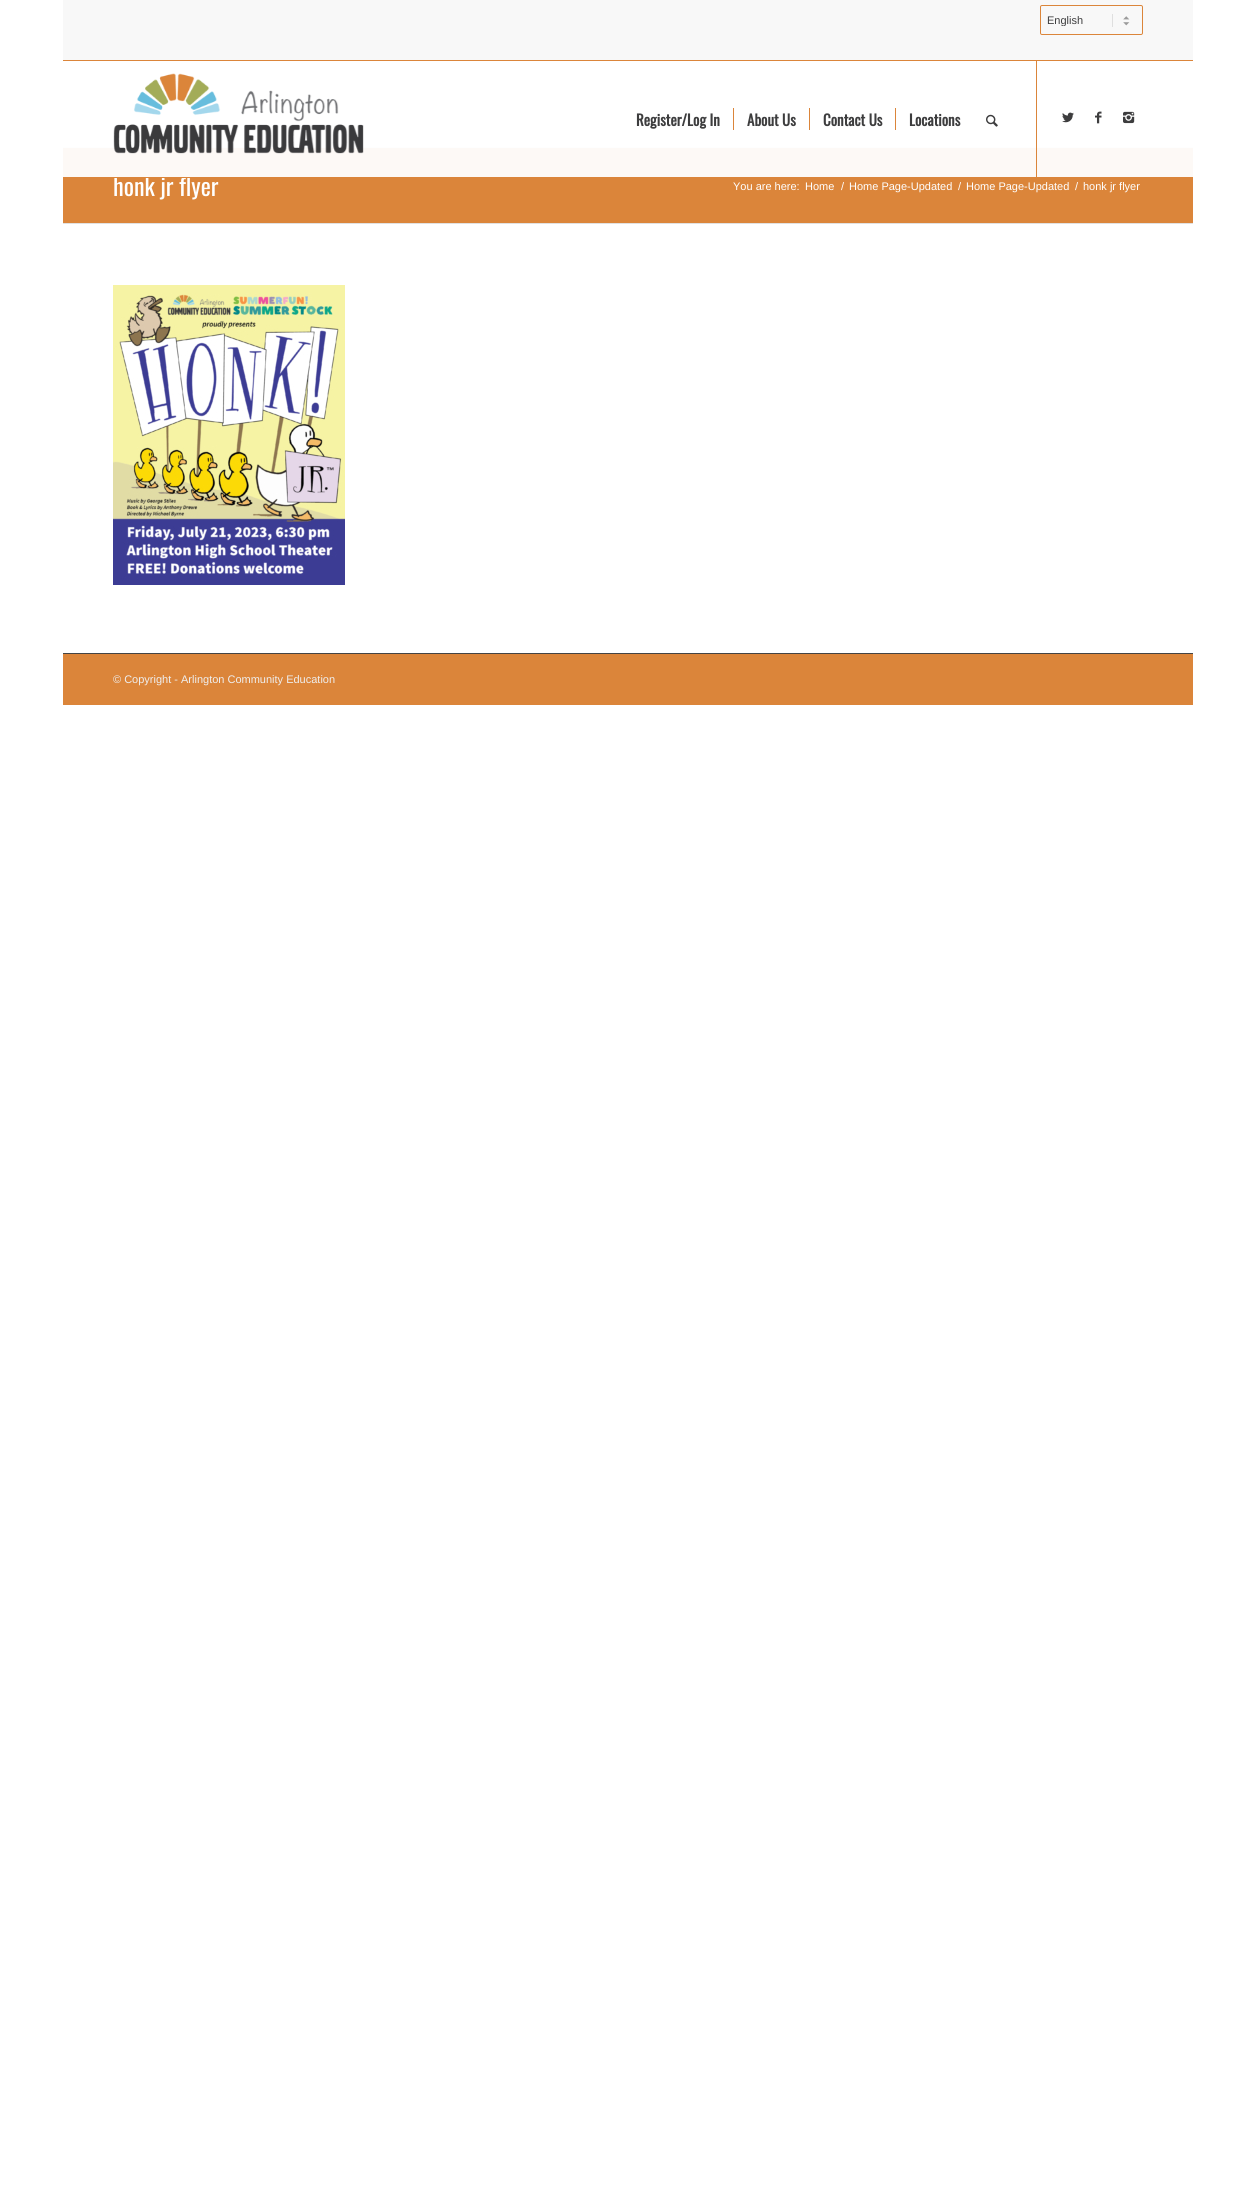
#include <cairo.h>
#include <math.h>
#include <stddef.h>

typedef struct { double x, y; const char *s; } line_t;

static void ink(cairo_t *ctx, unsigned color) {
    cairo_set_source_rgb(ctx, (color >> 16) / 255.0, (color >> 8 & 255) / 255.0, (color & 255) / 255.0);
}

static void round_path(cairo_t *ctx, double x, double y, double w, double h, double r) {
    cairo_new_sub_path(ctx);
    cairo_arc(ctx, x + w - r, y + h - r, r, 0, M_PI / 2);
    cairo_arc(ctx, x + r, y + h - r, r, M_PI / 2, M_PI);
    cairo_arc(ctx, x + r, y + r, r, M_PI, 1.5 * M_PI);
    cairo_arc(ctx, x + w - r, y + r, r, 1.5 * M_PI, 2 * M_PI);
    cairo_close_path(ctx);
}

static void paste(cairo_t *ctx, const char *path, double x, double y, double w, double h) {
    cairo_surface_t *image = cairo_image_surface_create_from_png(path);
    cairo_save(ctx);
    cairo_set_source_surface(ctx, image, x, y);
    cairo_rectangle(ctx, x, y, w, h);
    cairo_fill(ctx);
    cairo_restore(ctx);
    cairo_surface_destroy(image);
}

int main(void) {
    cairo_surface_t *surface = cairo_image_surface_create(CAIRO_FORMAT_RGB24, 1256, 2185);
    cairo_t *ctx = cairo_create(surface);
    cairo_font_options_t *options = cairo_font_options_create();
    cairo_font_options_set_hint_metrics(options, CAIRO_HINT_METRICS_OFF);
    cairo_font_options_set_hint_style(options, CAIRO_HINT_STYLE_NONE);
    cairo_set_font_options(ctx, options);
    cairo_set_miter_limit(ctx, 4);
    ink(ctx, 0xFFFFFF);
    cairo_paint(ctx);
    ink(ctx, 0xF8F8F8);
    cairo_rectangle(ctx, 63, 0, 1130, 60);
    cairo_fill(ctx);
    ink(ctx, 0xDB853A);
    cairo_rectangle(ctx, 63, 60, 1130, 1);
    cairo_fill(ctx);
    paste(ctx, "media/1.png", 1112, 14, 18, 13);
    round_path(ctx, 1040.5, 5.5, 102, 29, 1.5);
    cairo_set_line_width(ctx, 1);
    cairo_stroke(ctx);
    cairo_save(ctx);
    cairo_rectangle(ctx, 1047, 14, 89, 12);
    cairo_clip(ctx);
    cairo_select_font_face(ctx, "Liberation Sans", CAIRO_FONT_SLANT_NORMAL, CAIRO_FONT_WEIGHT_NORMAL);
    cairo_set_font_size(ctx, 11);
    ink(ctx, 0x3D3D3E);
    cairo_move_to(ctx, 1047, 24);
    cairo_show_text(ctx, "English");
    cairo_restore(ctx);
    cairo_rectangle(ctx, 63, 148, 1130, 75);
    cairo_fill(ctx);
    cairo_select_font_face(ctx, "Oswald", CAIRO_FONT_SLANT_NORMAL, CAIRO_FONT_WEIGHT_NORMAL);
    cairo_set_font_size(ctx, 24);
    ink(ctx, 0xFFFFFF);
    cairo_move_to(ctx, 113, 196);
    cairo_show_text(ctx, "honk jr flyer");
    ink(ctx, 0xDB853A);
    cairo_rectangle(ctx, 114, 177, 76, 1);
    cairo_fill(ctx);
    ink(ctx, 0xE1E1E1);
    cairo_rectangle(ctx, 63, 147, 1130, 1);
    cairo_fill(ctx);
    cairo_set_source_rgba(ctx, 1, 1, 1, 0.95);
    cairo_rectangle(ctx, 63, 147, 1130, 30);
    cairo_fill(ctx);
    paste(ctx, "media/2.png", 113, 73, 251, 81);
    ink(ctx, 0xDB853A);
    cairo_rectangle(ctx, 1036, 61, 1, 116);
    cairo_fill(ctx);
    cairo_select_font_face(ctx, "Oswald", CAIRO_FONT_SLANT_NORMAL, CAIRO_FONT_WEIGHT_BOLD);
    cairo_set_font_size(ctx, 15);
    ink(ctx, 0x3D3D3E);
    cairo_move_to(ctx, 636, 126);
    cairo_show_text(ctx, "Register/Log In");
    cairo_move_to(ctx, 747, 126);
    cairo_show_text(ctx, "About Us");
    ink(ctx, 0xDB853A);
    cairo_rectangle(ctx, 733, 108, 1, 22);
    cairo_fill(ctx);
    ink(ctx, 0x3D3D3E);
    cairo_move_to(ctx, 823, 126);
    cairo_show_text(ctx, "Contact Us");
    ink(ctx, 0xDB853A);
    cairo_rectangle(ctx, 809, 108, 1, 22);
    cairo_fill(ctx);
    ink(ctx, 0x3D3D3E);
    cairo_move_to(ctx, 909, 126);
    cairo_show_text(ctx, "Locations");
    ink(ctx, 0xDB853A);
    cairo_rectangle(ctx, 895, 108, 1, 22);
    cairo_fill(ctx);
    paste(ctx, "media/3.png", 986, 114, 12, 13);
    paste(ctx, "media/4.png", 1062, 112, 12, 11);
    paste(ctx, "media/5.png", 1095, 111, 7, 13);
    paste(ctx, "media/6.png", 1123, 111, 12, 13);
    cairo_select_font_face(ctx, "Liberation Sans", CAIRO_FONT_SLANT_NORMAL, CAIRO_FONT_WEIGHT_NORMAL);
    cairo_set_font_size(ctx, 11);
    ink(ctx, 0xFFFFFF);
    {
        static const line_t items[] = {
            {733, 190, "You are here:"},
            {805, 190, "Home"},
            {841, 190, "/"},
            {849, 190, "Home Page-Updated"},
            {958, 190, "/"},
            {966, 190, "Home Page-Updated"},
            {1075, 190, "/"},
            {1083, 190, "honk jr flyer"},
        };
        for (size_t i = 0; i < sizeof items / sizeof *items; i++) {
            cairo_move_to(ctx, items[i].x, items[i].y);
            cairo_show_text(ctx, items[i].s);
        }
    }
    ink(ctx, 0xE1E1E1);
    cairo_rectangle(ctx, 63, 223, 1130, 1);
    cairo_fill(ctx);
    paste(ctx, "media/7.png", 113, 285, 232, 300);
    ink(ctx, 0xDB853A);
    cairo_rectangle(ctx, 63, 654, 1130, 51);
    cairo_fill(ctx);
    ink(ctx, 0x444444);
    cairo_rectangle(ctx, 63, 653, 1130, 1);
    cairo_fill(ctx);
    ink(ctx, 0xEEEEEE);
    cairo_move_to(ctx, 113, 683);
    cairo_show_text(ctx, "© Copyright - Arlington Community Education");
    cairo_surface_write_to_png(surface, "image.png");
    cairo_font_options_destroy(options);
    cairo_destroy(ctx);
    cairo_surface_destroy(surface);
    return 0;
}
